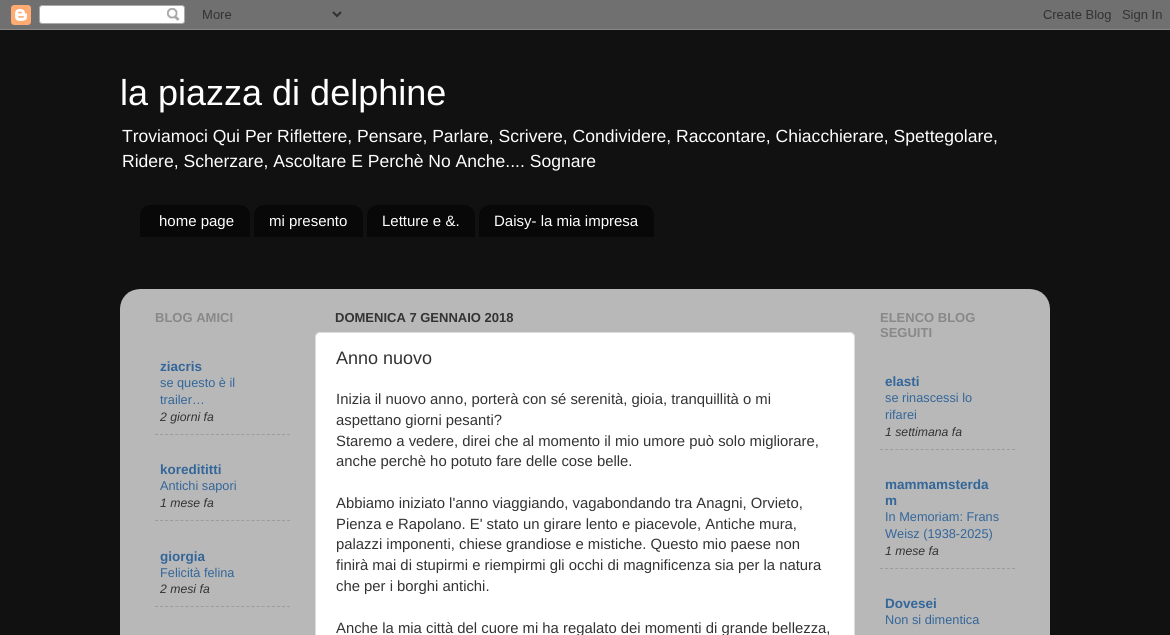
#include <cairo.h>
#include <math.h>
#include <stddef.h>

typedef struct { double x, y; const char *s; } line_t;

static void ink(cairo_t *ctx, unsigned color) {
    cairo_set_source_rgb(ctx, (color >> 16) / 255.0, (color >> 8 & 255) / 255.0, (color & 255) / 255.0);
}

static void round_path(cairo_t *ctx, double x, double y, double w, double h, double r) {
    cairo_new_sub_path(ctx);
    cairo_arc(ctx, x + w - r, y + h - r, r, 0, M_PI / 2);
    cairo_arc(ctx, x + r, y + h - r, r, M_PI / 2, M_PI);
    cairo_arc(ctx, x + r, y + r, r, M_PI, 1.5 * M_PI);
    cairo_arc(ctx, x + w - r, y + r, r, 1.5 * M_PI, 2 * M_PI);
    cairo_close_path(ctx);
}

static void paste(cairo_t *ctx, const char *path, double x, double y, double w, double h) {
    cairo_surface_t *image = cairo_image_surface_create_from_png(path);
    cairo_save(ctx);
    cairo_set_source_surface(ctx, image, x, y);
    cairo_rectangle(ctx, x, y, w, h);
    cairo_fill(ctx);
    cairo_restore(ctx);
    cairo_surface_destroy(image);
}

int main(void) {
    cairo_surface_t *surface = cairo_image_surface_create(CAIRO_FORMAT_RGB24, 1170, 635);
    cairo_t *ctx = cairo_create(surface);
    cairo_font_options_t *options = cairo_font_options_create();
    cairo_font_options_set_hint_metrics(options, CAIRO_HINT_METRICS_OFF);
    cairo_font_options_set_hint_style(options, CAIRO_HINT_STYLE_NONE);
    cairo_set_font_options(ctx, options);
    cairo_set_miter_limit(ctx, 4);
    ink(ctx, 0x111111);
    cairo_paint(ctx);
    paste(ctx, "media/1.png", 0, 0, 1170, 30);
    cairo_select_font_face(ctx, "Liberation Sans", CAIRO_FONT_SLANT_NORMAL, CAIRO_FONT_WEIGHT_NORMAL);
    cairo_set_font_size(ctx, 36);
    ink(ctx, 0xFFFFFF);
    cairo_move_to(ctx, 120, 105);
    cairo_show_text(ctx, "la piazza di delphine");
    cairo_set_font_size(ctx, 17.55);
    cairo_move_to(ctx, 122, 142);
    cairo_show_text(ctx, "Troviamoci Qui Per Riflettere, Pensare, Parlare, Scrivere, Condividere, Raccontare, Chiacchierare, Spettegolare,");
    cairo_move_to(ctx, 122, 167);
    cairo_show_text(ctx, "Ridere, Scherzare, Ascoltare E Perchè No Anche.... Sognare");
    paste(ctx, "media/2.png", 140, 205, 110, 32);
    cairo_set_font_size(ctx, 15);
    cairo_move_to(ctx, 159, 226);
    cairo_show_text(ctx, "home page");
    paste(ctx, "media/3.png", 254, 205, 109, 32);
    cairo_move_to(ctx, 269, 226);
    cairo_show_text(ctx, "mi presento");
    paste(ctx, "media/4.png", 367, 205, 108, 32);
    cairo_move_to(ctx, 382, 226);
    cairo_show_text(ctx, "Letture e &.");
    paste(ctx, "media/5.png", 479, 205, 175, 32);
    cairo_move_to(ctx, 494, 226);
    cairo_show_text(ctx, "Daisy- la mia impresa");
    paste(ctx, "media/6.png", 120, 289, 930, 346);
    cairo_select_font_face(ctx, "Liberation Sans", CAIRO_FONT_SLANT_NORMAL, CAIRO_FONT_WEIGHT_BOLD);
    cairo_set_font_size(ctx, 13);
    ink(ctx, 0x888888);
    cairo_move_to(ctx, 155, 322);
    cairo_show_text(ctx, "BLOG AMICI");
    cairo_set_font_size(ctx, 13.5);
    ink(ctx, 0x336699);
    cairo_move_to(ctx, 160, 371);
    cairo_show_text(ctx, "ziacris");
    cairo_select_font_face(ctx, "Liberation Sans", CAIRO_FONT_SLANT_NORMAL, CAIRO_FONT_WEIGHT_NORMAL);
    cairo_set_font_size(ctx, 12.75);
    cairo_move_to(ctx, 160, 387);
    cairo_show_text(ctx, "se questo è il");
    cairo_move_to(ctx, 160, 404);
    cairo_show_text(ctx, "trailer…");
    cairo_select_font_face(ctx, "Liberation Sans", CAIRO_FONT_SLANT_ITALIC, CAIRO_FONT_WEIGHT_NORMAL);
    cairo_set_font_size(ctx, 12.25);
    ink(ctx, 0x333333);
    cairo_move_to(ctx, 160, 421);
    cairo_show_text(ctx, "2 giorni fa");
    cairo_new_path(ctx);
    cairo_move_to(ctx, 155, 434.5);
    cairo_line_to(ctx, 290, 434.5);
    ink(ctx, 0x9C9C9C);
    cairo_set_line_width(ctx, 1);
    cairo_set_dash(ctx, (double[]){3, 2.08}, 2, 0);
    cairo_stroke(ctx);
    cairo_select_font_face(ctx, "Liberation Sans", CAIRO_FONT_SLANT_NORMAL, CAIRO_FONT_WEIGHT_BOLD);
    cairo_set_font_size(ctx, 13.5);
    ink(ctx, 0x336699);
    cairo_move_to(ctx, 160, 474);
    cairo_show_text(ctx, "koredititti");
    cairo_select_font_face(ctx, "Liberation Sans", CAIRO_FONT_SLANT_NORMAL, CAIRO_FONT_WEIGHT_NORMAL);
    cairo_set_font_size(ctx, 12.75);
    cairo_move_to(ctx, 160, 490);
    cairo_show_text(ctx, "Antichi sapori");
    cairo_select_font_face(ctx, "Liberation Sans", CAIRO_FONT_SLANT_ITALIC, CAIRO_FONT_WEIGHT_NORMAL);
    cairo_set_font_size(ctx, 12.25);
    ink(ctx, 0x333333);
    cairo_move_to(ctx, 160, 507);
    cairo_show_text(ctx, "1 mese fa");
    cairo_new_path(ctx);
    cairo_move_to(ctx, 155, 520.5);
    cairo_line_to(ctx, 290, 520.5);
    ink(ctx, 0x9C9C9C);
    cairo_stroke(ctx);
    cairo_select_font_face(ctx, "Liberation Sans", CAIRO_FONT_SLANT_NORMAL, CAIRO_FONT_WEIGHT_BOLD);
    cairo_set_font_size(ctx, 13.5);
    ink(ctx, 0x336699);
    cairo_move_to(ctx, 160, 561);
    cairo_show_text(ctx, "giorgia");
    cairo_select_font_face(ctx, "Liberation Sans", CAIRO_FONT_SLANT_NORMAL, CAIRO_FONT_WEIGHT_NORMAL);
    cairo_set_font_size(ctx, 12.75);
    cairo_move_to(ctx, 160, 577);
    cairo_show_text(ctx, "Felicità felina");
    cairo_select_font_face(ctx, "Liberation Sans", CAIRO_FONT_SLANT_ITALIC, CAIRO_FONT_WEIGHT_NORMAL);
    cairo_set_font_size(ctx, 12.25);
    ink(ctx, 0x333333);
    cairo_move_to(ctx, 160, 593);
    cairo_show_text(ctx, "2 mesi fa");
    cairo_new_path(ctx);
    cairo_move_to(ctx, 155, 606.5);
    cairo_line_to(ctx, 290, 606.5);
    ink(ctx, 0x9C9C9C);
    cairo_stroke(ctx);
    cairo_select_font_face(ctx, "Liberation Sans", CAIRO_FONT_SLANT_NORMAL, CAIRO_FONT_WEIGHT_BOLD);
    cairo_set_font_size(ctx, 13);
    ink(ctx, 0x333333);
    cairo_move_to(ctx, 335, 322);
    cairo_show_text(ctx, "DOMENICA 7 GENNAIO 2018");
    ink(ctx, 0xFFFFFF);
    round_path(ctx, 315.5, 332.5, 539, 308, 4.5);
    cairo_fill_preserve(ctx);
    ink(ctx, 0xDDDDDD);
    cairo_set_dash(ctx, NULL, 0, 0);
    cairo_stroke(ctx);
    cairo_select_font_face(ctx, "Liberation Sans", CAIRO_FONT_SLANT_NORMAL, CAIRO_FONT_WEIGHT_NORMAL);
    cairo_set_font_size(ctx, 18);
    ink(ctx, 0x333333);
    cairo_move_to(ctx, 336, 364);
    cairo_show_text(ctx, "Anno nuovo");
    cairo_set_font_size(ctx, 14.85);
    {
        static const line_t items[] = {
            {336, 404, "Inizia il nuovo anno, porterà con sé serenità, gioia, tranquillità o mi"},
            {336, 425, "aspettano giorni pesanti?"},
            {336, 446, "Staremo a vedere, direi che al momento il mio umore può solo migliorare,"},
            {336, 466, "anche perchè ho potuto fare delle cose belle."},
            {336, 508, "Abbiamo iniziato l'anno viaggiando, vagabondando tra Anagni, Orvieto,"},
            {336, 529, "Pienza e Rapolano. E' stato un girare lento e piacevole, Antiche mura,"},
            {336, 549, "palazzi imponenti, chiese grandiose e mistiche. Questo mio paese non"},
            {336, 570, "finirà mai di stupirmi e riempirmi gli occhi di magnificenza sia per la natura"},
            {336, 591, "che per i borghi antichi."},
            {336, 633, "Anche la mia città del cuore mi ha regalato dei momenti di grande bellezza,"},
        };
        for (size_t i = 0; i < sizeof items / sizeof *items; i++) {
            cairo_move_to(ctx, items[i].x, items[i].y);
            cairo_show_text(ctx, items[i].s);
        }
    }
    cairo_select_font_face(ctx, "Liberation Sans", CAIRO_FONT_SLANT_NORMAL, CAIRO_FONT_WEIGHT_BOLD);
    cairo_set_font_size(ctx, 13);
    ink(ctx, 0x888888);
    cairo_move_to(ctx, 880, 322);
    cairo_show_text(ctx, "ELENCO BLOG");
    cairo_move_to(ctx, 880, 337);
    cairo_show_text(ctx, "SEGUITI");
    cairo_set_font_size(ctx, 13.5);
    ink(ctx, 0x336699);
    cairo_move_to(ctx, 885, 386);
    cairo_show_text(ctx, "elasti");
    cairo_select_font_face(ctx, "Liberation Sans", CAIRO_FONT_SLANT_NORMAL, CAIRO_FONT_WEIGHT_NORMAL);
    cairo_set_font_size(ctx, 12.75);
    cairo_move_to(ctx, 885, 402);
    cairo_show_text(ctx, "se rinascessi lo");
    cairo_move_to(ctx, 885, 419);
    cairo_show_text(ctx, "rifarei");
    cairo_select_font_face(ctx, "Liberation Sans", CAIRO_FONT_SLANT_ITALIC, CAIRO_FONT_WEIGHT_NORMAL);
    cairo_set_font_size(ctx, 12.25);
    ink(ctx, 0x333333);
    cairo_move_to(ctx, 885, 436);
    cairo_show_text(ctx, "1 settimana fa");
    cairo_new_path(ctx);
    cairo_move_to(ctx, 880, 449.5);
    cairo_line_to(ctx, 1015, 449.5);
    ink(ctx, 0x9C9C9C);
    cairo_set_dash(ctx, (double[]){3, 2.08}, 2, 0);
    cairo_stroke(ctx);
    cairo_select_font_face(ctx, "Liberation Sans", CAIRO_FONT_SLANT_NORMAL, CAIRO_FONT_WEIGHT_BOLD);
    cairo_set_font_size(ctx, 13.5);
    ink(ctx, 0x336699);
    cairo_move_to(ctx, 885, 489);
    cairo_show_text(ctx, "mammamsterda");
    cairo_move_to(ctx, 885, 505);
    cairo_show_text(ctx, "m");
    cairo_select_font_face(ctx, "Liberation Sans", CAIRO_FONT_SLANT_NORMAL, CAIRO_FONT_WEIGHT_NORMAL);
    cairo_set_font_size(ctx, 12.75);
    cairo_move_to(ctx, 885, 521);
    cairo_show_text(ctx, "In Memoriam: Frans");
    cairo_move_to(ctx, 885, 538);
    cairo_show_text(ctx, "Weisz (1938-2025)");
    cairo_select_font_face(ctx, "Liberation Sans", CAIRO_FONT_SLANT_ITALIC, CAIRO_FONT_WEIGHT_NORMAL);
    cairo_set_font_size(ctx, 12.25);
    ink(ctx, 0x333333);
    cairo_move_to(ctx, 885, 555);
    cairo_show_text(ctx, "1 mese fa");
    cairo_new_path(ctx);
    cairo_move_to(ctx, 880, 568.5);
    cairo_line_to(ctx, 1015, 568.5);
    ink(ctx, 0x9C9C9C);
    cairo_stroke(ctx);
    cairo_select_font_face(ctx, "Liberation Sans", CAIRO_FONT_SLANT_NORMAL, CAIRO_FONT_WEIGHT_BOLD);
    cairo_set_font_size(ctx, 13.5);
    ink(ctx, 0x336699);
    cairo_move_to(ctx, 885, 608);
    cairo_show_text(ctx, "Dovesei");
    cairo_select_font_face(ctx, "Liberation Sans", CAIRO_FONT_SLANT_NORMAL, CAIRO_FONT_WEIGHT_NORMAL);
    cairo_set_font_size(ctx, 12.75);
    cairo_move_to(ctx, 885, 624);
    cairo_show_text(ctx, "Non si dimentica");
    cairo_surface_write_to_png(surface, "image.png");
    cairo_font_options_destroy(options);
    cairo_destroy(ctx);
    cairo_surface_destroy(surface);
    return 0;
}
